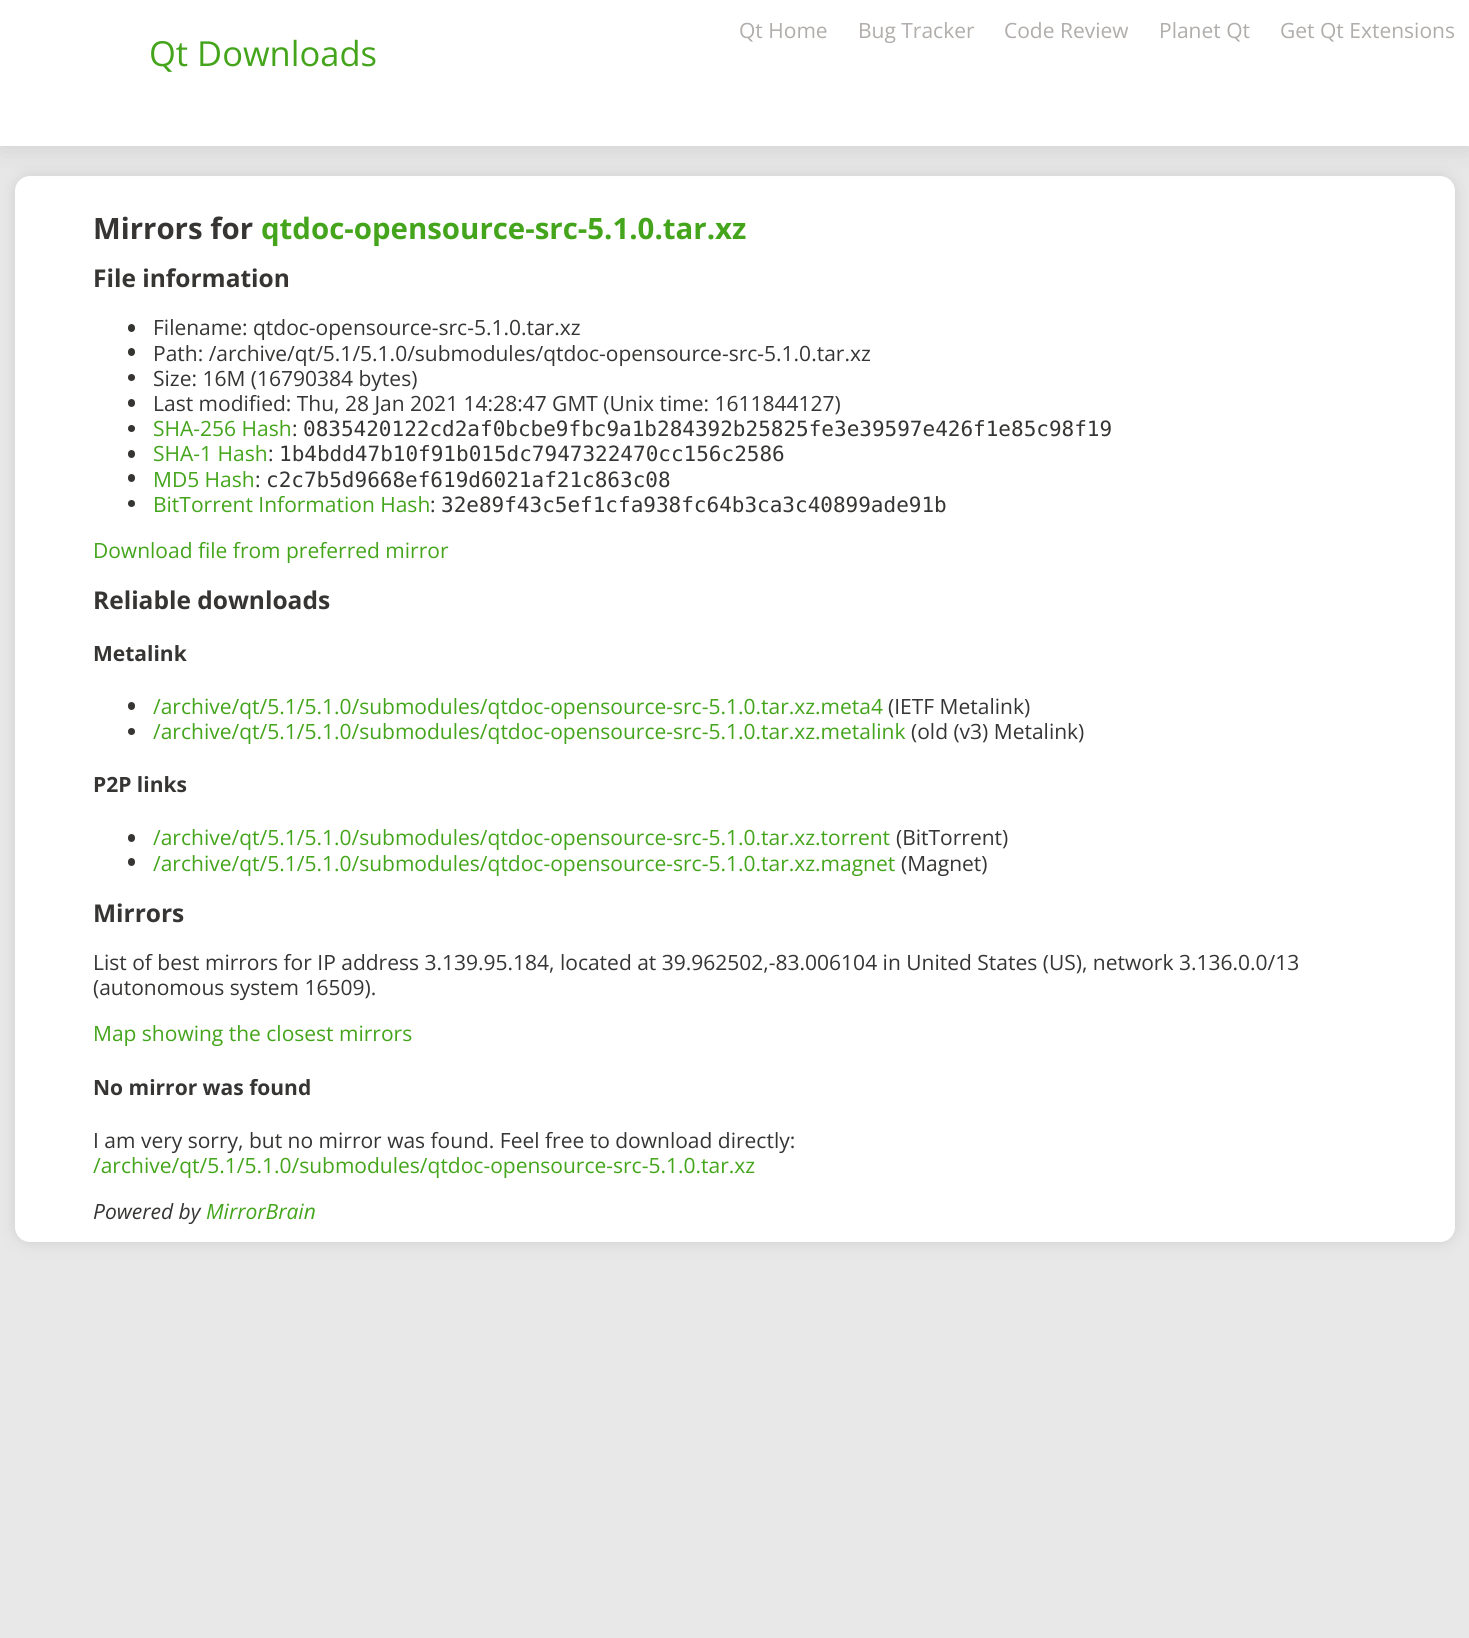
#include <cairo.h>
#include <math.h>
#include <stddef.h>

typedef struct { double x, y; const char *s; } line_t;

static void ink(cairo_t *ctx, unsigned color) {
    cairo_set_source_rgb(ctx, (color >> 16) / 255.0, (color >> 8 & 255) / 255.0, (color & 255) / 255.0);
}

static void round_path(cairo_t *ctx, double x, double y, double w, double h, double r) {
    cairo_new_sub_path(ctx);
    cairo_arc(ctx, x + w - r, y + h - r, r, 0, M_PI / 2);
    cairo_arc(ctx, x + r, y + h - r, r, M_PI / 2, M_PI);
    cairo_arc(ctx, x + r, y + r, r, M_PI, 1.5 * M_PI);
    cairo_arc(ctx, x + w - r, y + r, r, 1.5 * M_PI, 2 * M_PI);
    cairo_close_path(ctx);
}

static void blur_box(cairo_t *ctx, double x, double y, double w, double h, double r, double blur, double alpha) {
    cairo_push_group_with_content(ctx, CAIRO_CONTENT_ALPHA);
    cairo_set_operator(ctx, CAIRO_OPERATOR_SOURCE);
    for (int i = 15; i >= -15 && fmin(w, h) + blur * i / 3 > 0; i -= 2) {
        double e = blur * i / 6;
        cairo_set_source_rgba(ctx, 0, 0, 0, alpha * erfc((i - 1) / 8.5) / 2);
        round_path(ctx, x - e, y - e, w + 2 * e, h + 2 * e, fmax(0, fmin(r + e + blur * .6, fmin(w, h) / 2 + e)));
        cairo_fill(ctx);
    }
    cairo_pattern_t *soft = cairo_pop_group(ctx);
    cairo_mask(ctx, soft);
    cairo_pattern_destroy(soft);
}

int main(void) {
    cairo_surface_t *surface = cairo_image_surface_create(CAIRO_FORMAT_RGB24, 1469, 1638);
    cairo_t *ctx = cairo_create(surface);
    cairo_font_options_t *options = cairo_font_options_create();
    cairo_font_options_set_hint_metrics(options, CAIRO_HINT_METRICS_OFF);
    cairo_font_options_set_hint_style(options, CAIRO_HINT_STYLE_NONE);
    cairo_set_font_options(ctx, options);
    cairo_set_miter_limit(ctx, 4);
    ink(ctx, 0xE8E8E8);
    cairo_paint(ctx);
    ink(ctx, 0xCDCDCD);
    blur_box(ctx, 15, 176, 1440, 1066, 15, 7.5, 1);
    ink(ctx, 0xFFFFFF);
    round_path(ctx, 15, 176, 1440, 1066, 15);
    cairo_fill(ctx);
    ink(ctx, 0xCDCDCD);
    blur_box(ctx, 0, 0, 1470, 146, 0, 15, 1);
    ink(ctx, 0xFFFFFF);
    cairo_rectangle(ctx, 0, 0, 1469, 146);
    cairo_fill(ctx);
    cairo_select_font_face(ctx, "Open Sans", CAIRO_FONT_SLANT_NORMAL, CAIRO_FONT_WEIGHT_NORMAL);
    cairo_set_font_size(ctx, 21);
    ink(ctx, 0xB0ADAB);
    {
        static const line_t items[] = {
            {739, 38, "Qt Home"},
            {858, 38, "Bug Tracker"},
            {1004, 38, "Code Review"},
            {1159, 38, "Planet Qt"},
            {1280, 38, "Get Qt Extensions"},
        };
        for (size_t i = 0; i < sizeof items / sizeof *items; i++) {
            cairo_move_to(ctx, items[i].x, items[i].y);
            cairo_show_text(ctx, items[i].s);
        }
    }
    cairo_set_font_size(ctx, 34.5);
    ink(ctx, 0x44A51C);
    cairo_move_to(ctx, 149, 66);
    cairo_show_text(ctx, "Qt Downloads");
    cairo_select_font_face(ctx, "Open Sans", CAIRO_FONT_SLANT_NORMAL, CAIRO_FONT_WEIGHT_BOLD);
    cairo_set_font_size(ctx, 29.4);
    ink(ctx, 0x363534);
    cairo_move_to(ctx, 93, 239);
    cairo_show_text(ctx, "Mirrors for");
    ink(ctx, 0x44A51C);
    cairo_move_to(ctx, 261, 239);
    cairo_show_text(ctx, "qtdoc-opensource-src-5.1.0.tar.xz");
    cairo_set_font_size(ctx, 24.5);
    ink(ctx, 0x363534);
    cairo_move_to(ctx, 93, 287);
    cairo_show_text(ctx, "File information");
    round_path(ctx, 128, 324, 7, 8, 3.5);
    cairo_fill(ctx);
    cairo_select_font_face(ctx, "Open Sans", CAIRO_FONT_SLANT_NORMAL, CAIRO_FONT_WEIGHT_NORMAL);
    cairo_set_font_size(ctx, 21);
    cairo_move_to(ctx, 153, 335);
    cairo_show_text(ctx, "Filename: qtdoc-opensource-src-5.1.0.tar.xz");
    round_path(ctx, 128, 348, 7, 8, 3.5);
    cairo_fill(ctx);
    cairo_move_to(ctx, 153, 361);
    cairo_show_text(ctx, "Path: /archive/qt/5.1/5.1.0/submodules/qtdoc-opensource-src-5.1.0.tar.xz");
    cairo_new_path(ctx);
    cairo_arc(ctx, 131.5, 377.5, 3.5, 0, 2 * M_PI);
    cairo_fill(ctx);
    cairo_move_to(ctx, 153, 386);
    cairo_show_text(ctx, "Size: 16M (16790384 bytes)");
    round_path(ctx, 128, 399, 7, 8, 3.5);
    cairo_fill(ctx);
    cairo_move_to(ctx, 153, 411);
    cairo_show_text(ctx, "Last modified: Thu, 28 Jan 2021 14:28:47 GMT (Unix time: 1611844127)");
    cairo_new_path(ctx);
    cairo_arc(ctx, 131.5, 428.5, 3.5, 0, 2 * M_PI);
    cairo_fill(ctx);
    ink(ctx, 0x44A51C);
    cairo_move_to(ctx, 153, 436);
    cairo_show_text(ctx, "SHA-256 Hash");
    ink(ctx, 0x363534);
    cairo_move_to(ctx, 292, 436);
    cairo_show_text(ctx, ":");
    cairo_select_font_face(ctx, "DejaVu Sans Mono", CAIRO_FONT_SLANT_NORMAL, CAIRO_FONT_WEIGHT_NORMAL);
    cairo_move_to(ctx, 303, 436);
    cairo_show_text(ctx, "0835420122cd2af0bcbe9fbc9a1b284392b25825fe3e39597e426f1e85c98f19");
    round_path(ctx, 128, 450, 7, 8, 3.5);
    cairo_fill(ctx);
    cairo_select_font_face(ctx, "Open Sans", CAIRO_FONT_SLANT_NORMAL, CAIRO_FONT_WEIGHT_NORMAL);
    ink(ctx, 0x44A51C);
    cairo_move_to(ctx, 153, 461);
    cairo_show_text(ctx, "SHA-1 Hash");
    ink(ctx, 0x363534);
    cairo_move_to(ctx, 268, 461);
    cairo_show_text(ctx, ":");
    cairo_select_font_face(ctx, "DejaVu Sans Mono", CAIRO_FONT_SLANT_NORMAL, CAIRO_FONT_WEIGHT_NORMAL);
    cairo_move_to(ctx, 279, 461);
    cairo_show_text(ctx, "1b4bdd47b10f91b015dc7947322470cc156c2586");
    round_path(ctx, 128, 474, 7, 8, 3.5);
    cairo_fill(ctx);
    cairo_select_font_face(ctx, "Open Sans", CAIRO_FONT_SLANT_NORMAL, CAIRO_FONT_WEIGHT_NORMAL);
    ink(ctx, 0x44A51C);
    cairo_move_to(ctx, 153, 487);
    cairo_show_text(ctx, "MD5 Hash");
    ink(ctx, 0x363534);
    cairo_move_to(ctx, 255, 487);
    cairo_show_text(ctx, ":");
    cairo_select_font_face(ctx, "DejaVu Sans Mono", CAIRO_FONT_SLANT_NORMAL, CAIRO_FONT_WEIGHT_NORMAL);
    cairo_move_to(ctx, 266, 487);
    cairo_show_text(ctx, "c2c7b5d9668ef619d6021af21c863c08");
    cairo_new_path(ctx);
    cairo_arc(ctx, 131.5, 503.5, 3.5, 0, 2 * M_PI);
    cairo_fill(ctx);
    cairo_select_font_face(ctx, "Open Sans", CAIRO_FONT_SLANT_NORMAL, CAIRO_FONT_WEIGHT_NORMAL);
    ink(ctx, 0x44A51C);
    cairo_move_to(ctx, 153, 512);
    cairo_show_text(ctx, "BitTorrent Information Hash");
    ink(ctx, 0x363534);
    cairo_move_to(ctx, 430, 512);
    cairo_show_text(ctx, ":");
    cairo_select_font_face(ctx, "DejaVu Sans Mono", CAIRO_FONT_SLANT_NORMAL, CAIRO_FONT_WEIGHT_NORMAL);
    cairo_move_to(ctx, 441, 512);
    cairo_show_text(ctx, "32e89f43c5ef1cfa938fc64b3ca3c40899ade91b");
    cairo_select_font_face(ctx, "Open Sans", CAIRO_FONT_SLANT_NORMAL, CAIRO_FONT_WEIGHT_NORMAL);
    ink(ctx, 0x44A51C);
    cairo_move_to(ctx, 93, 558);
    cairo_show_text(ctx, "Download file from preferred mirror");
    cairo_select_font_face(ctx, "Open Sans", CAIRO_FONT_SLANT_NORMAL, CAIRO_FONT_WEIGHT_BOLD);
    cairo_set_font_size(ctx, 24.5);
    ink(ctx, 0x363534);
    cairo_move_to(ctx, 93, 609);
    cairo_show_text(ctx, "Reliable downloads");
    cairo_set_font_size(ctx, 21);
    cairo_move_to(ctx, 93, 661);
    cairo_show_text(ctx, "Metalink");
    round_path(ctx, 128, 702, 7, 8, 3.5);
    cairo_fill(ctx);
    cairo_select_font_face(ctx, "Open Sans", CAIRO_FONT_SLANT_NORMAL, CAIRO_FONT_WEIGHT_NORMAL);
    ink(ctx, 0x44A51C);
    cairo_move_to(ctx, 153, 714);
    cairo_show_text(ctx, "/archive/qt/5.1/5.1.0/submodules/qtdoc-opensource-src-5.1.0.tar.xz.meta4");
    ink(ctx, 0x363534);
    cairo_move_to(ctx, 888, 714);
    cairo_show_text(ctx, "(IETF Metalink)");
    cairo_new_path(ctx);
    cairo_arc(ctx, 131.5, 731.5, 3.5, 0, 2 * M_PI);
    cairo_fill(ctx);
    ink(ctx, 0x44A51C);
    cairo_move_to(ctx, 153, 739);
    cairo_show_text(ctx, "/archive/qt/5.1/5.1.0/submodules/qtdoc-opensource-src-5.1.0.tar.xz.metalink");
    ink(ctx, 0x363534);
    cairo_move_to(ctx, 911, 739);
    cairo_show_text(ctx, "(old (v3) Metalink)");
    cairo_select_font_face(ctx, "Open Sans", CAIRO_FONT_SLANT_NORMAL, CAIRO_FONT_WEIGHT_BOLD);
    cairo_move_to(ctx, 93, 792);
    cairo_show_text(ctx, "P2P links");
    round_path(ctx, 128, 834, 7, 8, 3.5);
    cairo_fill(ctx);
    cairo_select_font_face(ctx, "Open Sans", CAIRO_FONT_SLANT_NORMAL, CAIRO_FONT_WEIGHT_NORMAL);
    ink(ctx, 0x44A51C);
    cairo_move_to(ctx, 153, 845);
    cairo_show_text(ctx, "/archive/qt/5.1/5.1.0/submodules/qtdoc-opensource-src-5.1.0.tar.xz.torrent");
    ink(ctx, 0x363534);
    cairo_move_to(ctx, 896, 845);
    cairo_show_text(ctx, "(BitTorrent)");
    round_path(ctx, 128, 858, 7, 8, 3.5);
    cairo_fill(ctx);
    ink(ctx, 0x44A51C);
    cairo_move_to(ctx, 153, 871);
    cairo_show_text(ctx, "/archive/qt/5.1/5.1.0/submodules/qtdoc-opensource-src-5.1.0.tar.xz.magnet");
    ink(ctx, 0x363534);
    cairo_move_to(ctx, 901, 871);
    cairo_show_text(ctx, "(Magnet)");
    cairo_select_font_face(ctx, "Open Sans", CAIRO_FONT_SLANT_NORMAL, CAIRO_FONT_WEIGHT_BOLD);
    cairo_set_font_size(ctx, 24.5);
    cairo_move_to(ctx, 93, 922);
    cairo_show_text(ctx, "Mirrors");
    cairo_select_font_face(ctx, "Open Sans", CAIRO_FONT_SLANT_NORMAL, CAIRO_FONT_WEIGHT_NORMAL);
    cairo_set_font_size(ctx, 21);
    cairo_move_to(ctx, 93, 970);
    cairo_show_text(ctx, "List of best mirrors for IP address 3.139.95.184, located at 39.962502,-83.006104 in United States (US), network 3.136.0.0/13");
    cairo_move_to(ctx, 93, 995);
    cairo_show_text(ctx, "(autonomous system 16509).");
    ink(ctx, 0x44A51C);
    cairo_move_to(ctx, 93, 1041);
    cairo_show_text(ctx, "Map showing the closest mirrors");
    cairo_select_font_face(ctx, "Open Sans", CAIRO_FONT_SLANT_NORMAL, CAIRO_FONT_WEIGHT_BOLD);
    ink(ctx, 0x363534);
    cairo_move_to(ctx, 93, 1095);
    cairo_show_text(ctx, "No mirror was found");
    cairo_select_font_face(ctx, "Open Sans", CAIRO_FONT_SLANT_NORMAL, CAIRO_FONT_WEIGHT_NORMAL);
    cairo_move_to(ctx, 93, 1148);
    cairo_show_text(ctx, "I am very sorry, but no mirror was found. Feel free to download directly:");
    ink(ctx, 0x44A51C);
    cairo_move_to(ctx, 93, 1173);
    cairo_show_text(ctx, "/archive/qt/5.1/5.1.0/submodules/qtdoc-opensource-src-5.1.0.tar.xz");
    cairo_select_font_face(ctx, "Open Sans", CAIRO_FONT_SLANT_ITALIC, CAIRO_FONT_WEIGHT_NORMAL);
    ink(ctx, 0x363534);
    cairo_move_to(ctx, 93, 1219);
    cairo_show_text(ctx, "Powered by");
    ink(ctx, 0x44A51C);
    cairo_move_to(ctx, 206, 1219);
    cairo_show_text(ctx, "MirrorBrain");
    cairo_surface_write_to_png(surface, "image.png");
    cairo_font_options_destroy(options);
    cairo_destroy(ctx);
    cairo_surface_destroy(surface);
    return 0;
}
